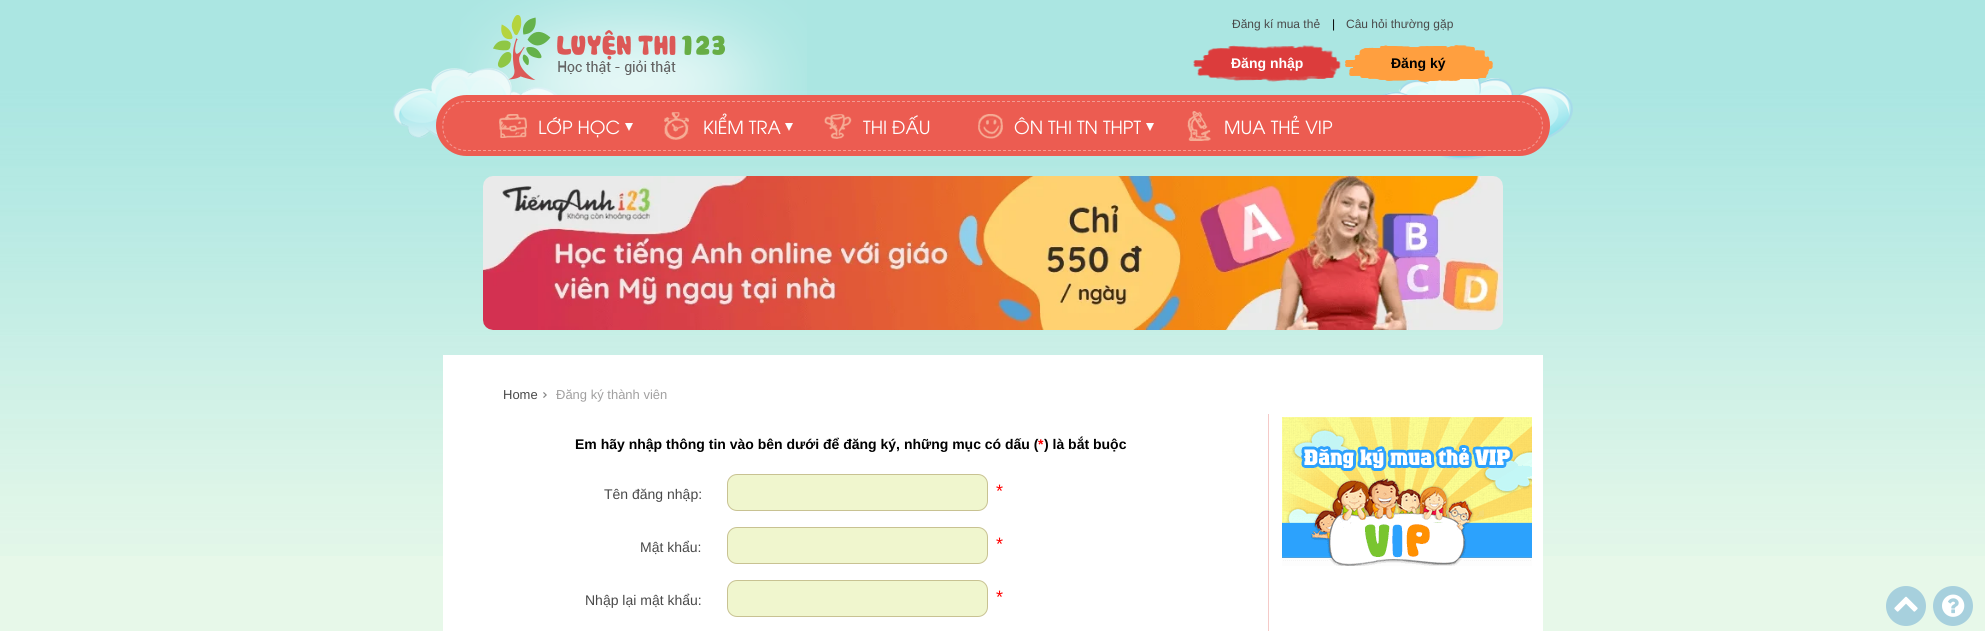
#include <cairo.h>
#include <math.h>
#include <stddef.h>


static void ink(cairo_t *ctx, unsigned color) {
    cairo_set_source_rgb(ctx, (color >> 16) / 255.0, (color >> 8 & 255) / 255.0, (color & 255) / 255.0);
}

static void round_path(cairo_t *ctx, double x, double y, double w, double h, double r) {
    cairo_new_sub_path(ctx);
    cairo_arc(ctx, x + w - r, y + h - r, r, 0, M_PI / 2);
    cairo_arc(ctx, x + r, y + h - r, r, M_PI / 2, M_PI);
    cairo_arc(ctx, x + r, y + r, r, M_PI, 1.5 * M_PI);
    cairo_arc(ctx, x + w - r, y + r, r, 1.5 * M_PI, 2 * M_PI);
    cairo_close_path(ctx);
}

static void paste(cairo_t *ctx, const char *path, double x, double y, double w, double h) {
    cairo_surface_t *image = cairo_image_surface_create_from_png(path);
    cairo_save(ctx);
    cairo_set_source_surface(ctx, image, x, y);
    cairo_rectangle(ctx, x, y, w, h);
    cairo_fill(ctx);
    cairo_restore(ctx);
    cairo_surface_destroy(image);
}

int main(void) {
    cairo_surface_t *surface = cairo_image_surface_create(CAIRO_FORMAT_RGB24, 1985, 631);
    cairo_t *ctx = cairo_create(surface);
    cairo_font_options_t *options = cairo_font_options_create();
    cairo_font_options_set_hint_metrics(options, CAIRO_HINT_METRICS_OFF);
    cairo_font_options_set_hint_style(options, CAIRO_HINT_STYLE_NONE);
    cairo_set_font_options(ctx, options);
    cairo_set_miter_limit(ctx, 4);
    ink(ctx, 0xE7F8E9);
    cairo_paint(ctx);
    paste(ctx, "media/1.png", 0, 0, 1985, 556);
    paste(ctx, "media/6.png", 393, 68, 165, 71);
    paste(ctx, "media/2.png", 460, 0, 347, 96);
    paste(ctx, "media/3.png", 493, 15, 232, 65);
    cairo_select_font_face(ctx, "Liberation Sans", CAIRO_FONT_SLANT_NORMAL, CAIRO_FONT_WEIGHT_NORMAL);
    cairo_set_font_size(ctx, 12);
    ink(ctx, 0x494949);
    cairo_move_to(ctx, 1232, 28);
    cairo_show_text(ctx, "Đăng kí mua thẻ");
    ink(ctx, 0x000000);
    cairo_move_to(ctx, 1332, 28);
    cairo_show_text(ctx, "|");
    ink(ctx, 0x494949);
    cairo_move_to(ctx, 1346, 28);
    cairo_show_text(ctx, "Câu hỏi thường gặp");
    paste(ctx, "media/4.png", 1193, 45, 148, 37);
    cairo_select_font_face(ctx, "Liberation Sans", CAIRO_FONT_SLANT_NORMAL, CAIRO_FONT_WEIGHT_BOLD);
    cairo_set_font_size(ctx, 14);
    ink(ctx, 0xFFFFFF);
    cairo_move_to(ctx, 1231, 68);
    cairo_show_text(ctx, "Đăng nhập");
    paste(ctx, "media/7.png", 1382, 78, 191, 82);
    paste(ctx, "media/5.png", 1345, 45, 148, 37);
    ink(ctx, 0x000000);
    cairo_move_to(ctx, 1391, 68);
    cairo_show_text(ctx, "Đăng ký");
    ink(ctx, 0xEC5C51);
    round_path(ctx, 436, 95, 1114, 61, 30.5);
    cairo_fill(ctx);
    cairo_new_path(ctx);
    cairo_move_to(ctx, 467, 101.5);
    cairo_line_to(ctx, 1518, 101.5);
    cairo_curve_to(ctx, 1521.5, 101.5, 1524.5, 102, 1527.5, 103.5);
    cairo_curve_to(ctx, 1552, 113.5, 1544.5, 150.5, 1518, 150.5);
    cairo_line_to(ctx, 467, 150.5);
    cairo_curve_to(ctx, 434.5, 150.5, 435, 101.5, 467, 101.5);
    cairo_close_path(ctx);
    ink(ctx, 0xF39992);
    cairo_set_line_width(ctx, 1);
    cairo_set_dash(ctx, (double[]){3, 2}, 2, 0);
    cairo_stroke(ctx);
    paste(ctx, "media/8.png", 499, 114, 28, 24);
    cairo_select_font_face(ctx, "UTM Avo", CAIRO_FONT_SLANT_NORMAL, CAIRO_FONT_WEIGHT_NORMAL);
    cairo_set_font_size(ctx, 18);
    ink(ctx, 0xFFFFFF);
    cairo_move_to(ctx, 538, 134);
    cairo_show_text(ctx, "LỚP HỌC");
    cairo_new_path(ctx);
    cairo_move_to(ctx, 625, 123);
    cairo_line_to(ctx, 633, 123);
    cairo_line_to(ctx, 629, 131);
    cairo_close_path(ctx);
    cairo_fill(ctx);
    paste(ctx, "media/9.png", 664, 112, 25, 28);
    cairo_move_to(ctx, 703, 134);
    cairo_show_text(ctx, "KIỂM TRA");
    cairo_new_path(ctx);
    cairo_move_to(ctx, 785, 123);
    cairo_line_to(ctx, 793, 123);
    cairo_line_to(ctx, 789, 131);
    cairo_close_path(ctx);
    cairo_fill(ctx);
    paste(ctx, "media/10.png", 824, 114, 28, 25);
    cairo_move_to(ctx, 863, 134);
    cairo_show_text(ctx, "THI ĐẤU");
    paste(ctx, "media/11.png", 978, 114, 25, 25);
    cairo_move_to(ctx, 1014, 134);
    cairo_show_text(ctx, "ÔN THI TN THPT");
    cairo_new_path(ctx);
    cairo_move_to(ctx, 1146, 123);
    cairo_line_to(ctx, 1154, 123);
    cairo_line_to(ctx, 1150, 131);
    cairo_close_path(ctx);
    cairo_fill(ctx);
    paste(ctx, "media/12.png", 1187, 111, 24, 30);
    cairo_move_to(ctx, 1224, 134);
    cairo_show_text(ctx, "MUA THẺ VIP");
    paste(ctx, "media/13.png", 483, 176, 1020, 154);
    cairo_rectangle(ctx, 443, 355, 1100, 276);
    cairo_fill(ctx);
    paste(ctx, "media/14.png", 543, 392, 4, 6);
    cairo_select_font_face(ctx, "Liberation Sans", CAIRO_FONT_SLANT_NORMAL, CAIRO_FONT_WEIGHT_NORMAL);
    cairo_set_font_size(ctx, 13);
    ink(ctx, 0x494949);
    cairo_move_to(ctx, 503, 399);
    cairo_show_text(ctx, "Home");
    ink(ctx, 0xA1A0A0);
    cairo_move_to(ctx, 556, 399);
    cairo_show_text(ctx, "Đăng ký thành viên");
    ink(ctx, 0xF5CAC8);
    cairo_rectangle(ctx, 1268, 414, 1, 217);
    cairo_fill(ctx);
    cairo_select_font_face(ctx, "Liberation Sans", CAIRO_FONT_SLANT_NORMAL, CAIRO_FONT_WEIGHT_BOLD);
    cairo_set_font_size(ctx, 14);
    ink(ctx, 0x000000);
    cairo_move_to(ctx, 575, 449);
    cairo_show_text(ctx, "Em hãy nhập thông tin vào bên dưới để đăng ký, những mục có dấu (");
    ink(ctx, 0xFF0000);
    cairo_move_to(ctx, 1038, 449);
    cairo_show_text(ctx, "*");
    ink(ctx, 0x000000);
    cairo_move_to(ctx, 1044, 449);
    cairo_show_text(ctx, ") là bắt buộc");
    cairo_select_font_face(ctx, "Liberation Sans", CAIRO_FONT_SLANT_NORMAL, CAIRO_FONT_WEIGHT_NORMAL);
    ink(ctx, 0x494949);
    cairo_move_to(ctx, 604, 499);
    cairo_show_text(ctx, "Tên đăng nhập:");
    ink(ctx, 0xF0F6CE);
    round_path(ctx, 727.5, 474.5, 260, 36, 9.5);
    cairo_fill_preserve(ctx);
    ink(ctx, 0xC8C292);
    cairo_set_dash(ctx, NULL, 0, 0);
    cairo_stroke(ctx);
    cairo_set_font_size(ctx, 18);
    ink(ctx, 0xFF0000);
    cairo_move_to(ctx, 996, 497);
    cairo_show_text(ctx, "*");
    cairo_set_font_size(ctx, 14);
    ink(ctx, 0x494949);
    cairo_move_to(ctx, 640, 552);
    cairo_show_text(ctx, "Mật khẩu:");
    ink(ctx, 0xF0F6CE);
    round_path(ctx, 727.5, 527.5, 260, 36, 9.5);
    cairo_fill_preserve(ctx);
    ink(ctx, 0xC8C292);
    cairo_stroke(ctx);
    cairo_set_font_size(ctx, 18);
    ink(ctx, 0xFF0000);
    cairo_move_to(ctx, 996, 550);
    cairo_show_text(ctx, "*");
    cairo_set_font_size(ctx, 14);
    ink(ctx, 0x494949);
    cairo_move_to(ctx, 585, 605);
    cairo_show_text(ctx, "Nhập lại mật khẩu:");
    ink(ctx, 0xF0F6CE);
    round_path(ctx, 727.5, 580.5, 260, 36, 9.5);
    cairo_fill_preserve(ctx);
    ink(ctx, 0xC8C292);
    cairo_stroke(ctx);
    cairo_set_font_size(ctx, 18);
    ink(ctx, 0xFF0000);
    cairo_move_to(ctx, 996, 603);
    cairo_show_text(ctx, "*");
    paste(ctx, "media/15.png", 1282, 417, 250, 149);
    ink(ctx, 0xA7D0DD);
    cairo_arc(ctx, 1906, 606, 20, 0, 2 * M_PI);
    cairo_fill(ctx);
    paste(ctx, "media/16.png", 1894, 596, 24, 16);
    cairo_arc(ctx, 1953, 606, 20, 0, 2 * M_PI);
    cairo_fill(ctx);
    paste(ctx, "media/17.png", 1942, 594, 23, 23);
    cairo_surface_write_to_png(surface, "image.png");
    cairo_font_options_destroy(options);
    cairo_destroy(ctx);
    cairo_surface_destroy(surface);
    return 0;
}
